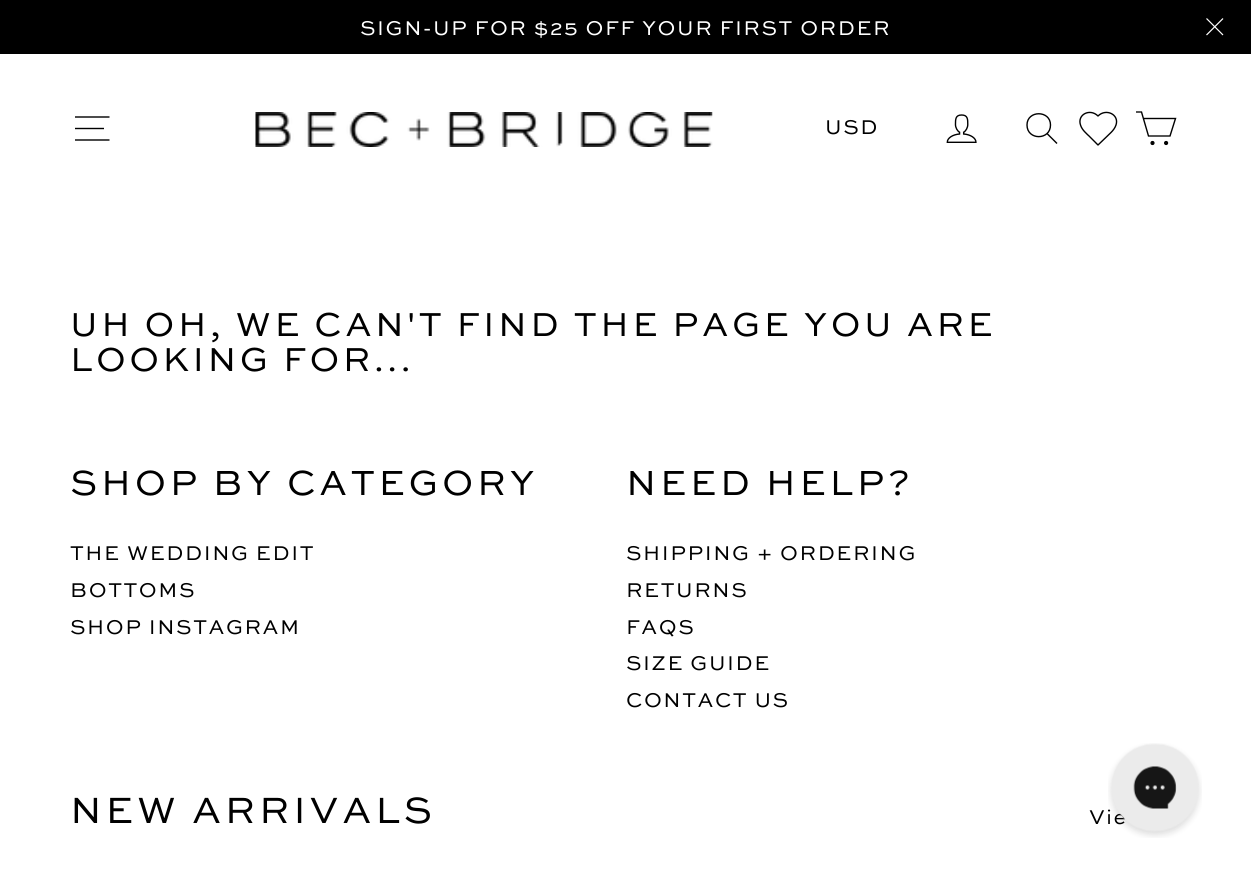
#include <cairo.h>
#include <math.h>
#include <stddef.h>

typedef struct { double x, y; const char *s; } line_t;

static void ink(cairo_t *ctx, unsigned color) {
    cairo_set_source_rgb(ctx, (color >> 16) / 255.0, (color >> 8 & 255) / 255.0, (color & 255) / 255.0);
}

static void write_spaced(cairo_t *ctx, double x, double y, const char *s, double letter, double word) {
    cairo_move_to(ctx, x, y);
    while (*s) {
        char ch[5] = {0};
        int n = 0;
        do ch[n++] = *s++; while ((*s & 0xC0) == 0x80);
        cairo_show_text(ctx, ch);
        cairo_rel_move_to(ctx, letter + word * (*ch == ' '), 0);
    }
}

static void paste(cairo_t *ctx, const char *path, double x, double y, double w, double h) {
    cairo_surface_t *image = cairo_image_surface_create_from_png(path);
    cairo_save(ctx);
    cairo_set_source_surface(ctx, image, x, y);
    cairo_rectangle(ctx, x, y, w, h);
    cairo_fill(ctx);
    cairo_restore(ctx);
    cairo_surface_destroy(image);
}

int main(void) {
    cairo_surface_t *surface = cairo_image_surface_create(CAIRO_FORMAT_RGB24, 1251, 878);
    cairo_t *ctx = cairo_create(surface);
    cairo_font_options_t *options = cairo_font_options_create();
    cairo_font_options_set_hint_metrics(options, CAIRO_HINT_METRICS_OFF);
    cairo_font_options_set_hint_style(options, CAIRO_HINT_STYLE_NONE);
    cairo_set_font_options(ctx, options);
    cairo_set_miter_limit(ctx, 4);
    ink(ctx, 0xFFFFFF);
    cairo_paint(ctx);
    ink(ctx, 0x000000);
    cairo_rectangle(ctx, 0, 0, 1251, 54);
    cairo_fill(ctx);
    cairo_select_font_face(ctx, "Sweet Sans", CAIRO_FONT_SLANT_NORMAL, CAIRO_FONT_WEIGHT_NORMAL);
    cairo_set_font_size(ctx, 21);
    ink(ctx, 0xFFFFFF);
    write_spaced(ctx, 360, 35, "SIGN-UP FOR $25 OFF YOUR FIRST ORDER", 1.55, 0);
    cairo_new_path(ctx);
    cairo_move_to(ctx, 1206.5, 18.5);
    cairo_line_to(ctx, 1223, 35);
    cairo_move_to(ctx, 1223, 18.5);
    cairo_line_to(ctx, 1206.5, 35);
    cairo_set_line_width(ctx, 1.2);
    cairo_stroke(ctx);
    cairo_new_path(ctx);
    cairo_move_to(ctx, 75, 117);
    cairo_line_to(ctx, 109.5, 117);
    cairo_move_to(ctx, 75, 128.5);
    cairo_line_to(ctx, 104, 128.5);
    cairo_move_to(ctx, 75, 140);
    cairo_line_to(ctx, 109.5, 140);
    ink(ctx, 0x000000);
    cairo_set_line_width(ctx, 1.4);
    cairo_stroke(ctx);
    paste(ctx, "media/1.png", 255, 112, 458, 35);
    write_spaced(ctx, 825, 134, "USD", 1.55, 0);
    paste(ctx, "media/2.png", 946, 114, 31, 29);
    cairo_new_path(ctx);
    cairo_move_to(ctx, 1050.5, 125);
    cairo_curve_to(ctx, 1050.5, 140.5, 1027, 140.5, 1027, 125);
    cairo_curve_to(ctx, 1027, 110, 1050.5, 110, 1050.5, 125);
    cairo_close_path(ctx);
    cairo_move_to(ctx, 1057, 143.5);
    cairo_line_to(ctx, 1047, 133.5);
    cairo_stroke(ctx);
    cairo_new_path(ctx);
    cairo_move_to(ctx, 1111, 132.5);
    cairo_curve_to(ctx, 1113, 130.5, 1115, 128, 1116, 125);
    cairo_curve_to(ctx, 1119.5, 114.5, 1106, 108, 1098, 116);
    cairo_curve_to(ctx, 1090, 108, 1077, 114.5, 1080.5, 125);
    cairo_curve_to(ctx, 1082, 130, 1086.5, 133.5, 1089.5, 136.5);
    cairo_line_to(ctx, 1098, 145);
    cairo_close_path(ctx);
    cairo_set_line_cap(ctx, CAIRO_LINE_CAP_ROUND);
    cairo_set_line_join(ctx, CAIRO_LINE_JOIN_ROUND);
    cairo_stroke(ctx);
    cairo_new_path(ctx);
    cairo_move_to(ctx, 1143.5, 118.5);
    cairo_line_to(ctx, 1175.5, 118.5);
    cairo_line_to(ctx, 1170, 136);
    cairo_line_to(ctx, 1148.5, 136);
    cairo_line_to(ctx, 1141.5, 112);
    cairo_line_to(ctx, 1136, 112);
    cairo_set_line_cap(ctx, CAIRO_LINE_CAP_BUTT);
    cairo_set_line_join(ctx, CAIRO_LINE_JOIN_MITER);
    cairo_stroke(ctx);
    cairo_arc(ctx, 1152.5, 143, 1.4, 0, 2 * M_PI);
    cairo_fill_preserve(ctx);
    cairo_stroke(ctx);
    cairo_arc(ctx, 1166.1, 143, 1.4, 0, 2 * M_PI);
    cairo_fill_preserve(ctx);
    cairo_stroke(ctx);
    cairo_set_font_size(ctx, 35);
    write_spaced(ctx, 70, 336, "UH OH, WE CAN'T FIND THE PAGE YOU ARE", 3.5, 0);
    write_spaced(ctx, 70, 371, "LOOKING FOR...", 3.5, 0);
    cairo_set_font_size(ctx, 36.75);
    write_spaced(ctx, 70, 495, "SHOP BY CATEGORY", 3.7, 0);
    cairo_set_font_size(ctx, 21);
    {
        static const line_t items[] = {
            {70, 560, "THE WEDDING EDIT"},
            {70, 597, "BOTTOMS"},
            {70, 634, "SHOP INSTAGRAM"},
        };
        for (size_t i = 0; i < sizeof items / sizeof *items; i++) {
            write_spaced(ctx, items[i].x, items[i].y, items[i].s, 1.55, 0);
        }
    }
    cairo_set_font_size(ctx, 36.75);
    write_spaced(ctx, 626, 495, "NEED HELP?", 3.7, 0);
    cairo_set_font_size(ctx, 21);
    {
        static const line_t items[] = {
            {626, 560, "SHIPPING + ORDERING"},
            {626, 597, "RETURNS"},
            {626, 634, "FAQS"},
            {626, 670, "SIZE GUIDE"},
            {626, 707, "CONTACT US"},
        };
        for (size_t i = 0; i < sizeof items / sizeof *items; i++) {
            write_spaced(ctx, items[i].x, items[i].y, items[i].s, 1.55, 0);
        }
    }
    cairo_set_font_size(ctx, 38.5);
    write_spaced(ctx, 70, 823, "NEW ARRIVALS", 3.8, 0);
    cairo_set_font_size(ctx, 21);
    write_spaced(ctx, 1089, 824, "Vie", 1.55, 0);
    paste(ctx, "media/3.png", 1108, 743, 94, 95);
    cairo_surface_write_to_png(surface, "image.png");
    cairo_font_options_destroy(options);
    cairo_destroy(ctx);
    cairo_surface_destroy(surface);
    return 0;
}
